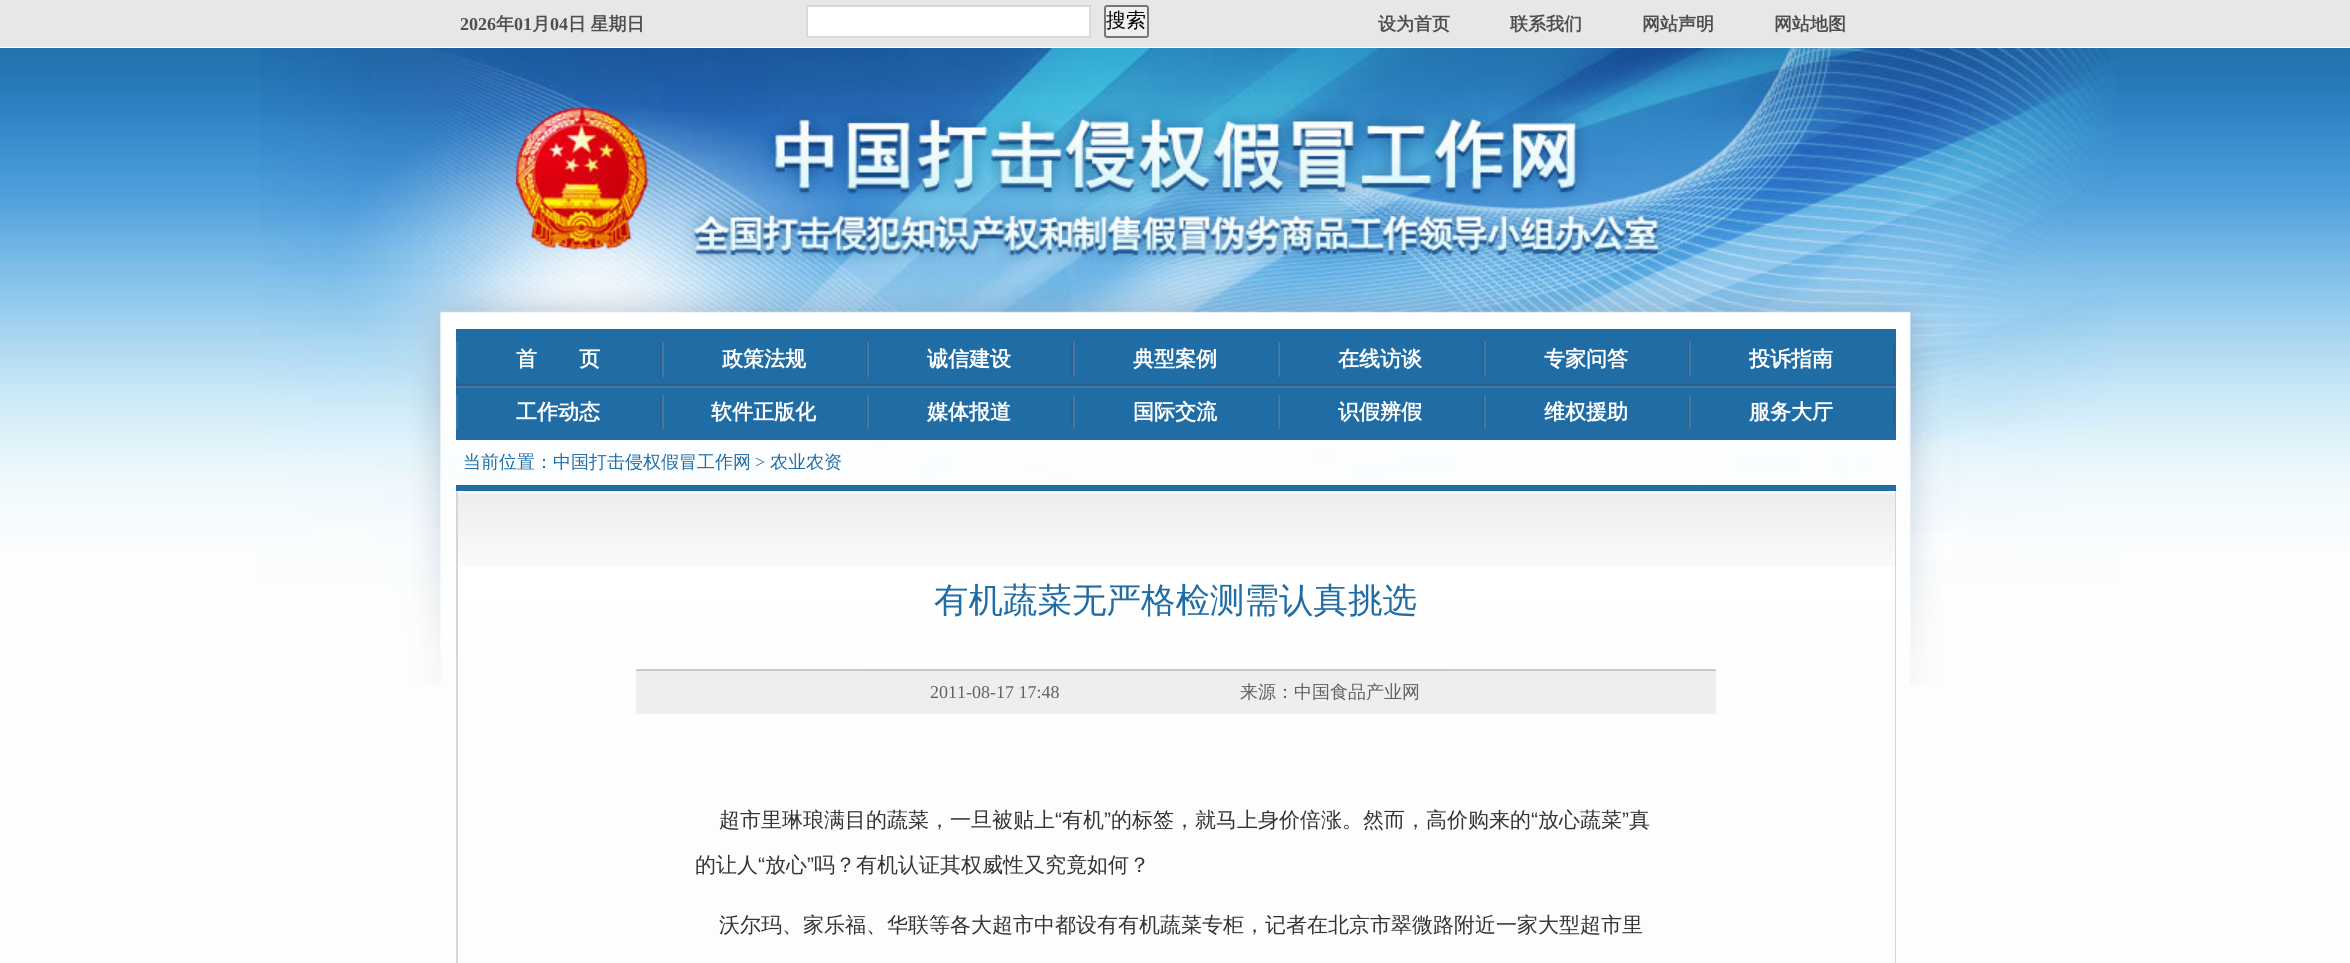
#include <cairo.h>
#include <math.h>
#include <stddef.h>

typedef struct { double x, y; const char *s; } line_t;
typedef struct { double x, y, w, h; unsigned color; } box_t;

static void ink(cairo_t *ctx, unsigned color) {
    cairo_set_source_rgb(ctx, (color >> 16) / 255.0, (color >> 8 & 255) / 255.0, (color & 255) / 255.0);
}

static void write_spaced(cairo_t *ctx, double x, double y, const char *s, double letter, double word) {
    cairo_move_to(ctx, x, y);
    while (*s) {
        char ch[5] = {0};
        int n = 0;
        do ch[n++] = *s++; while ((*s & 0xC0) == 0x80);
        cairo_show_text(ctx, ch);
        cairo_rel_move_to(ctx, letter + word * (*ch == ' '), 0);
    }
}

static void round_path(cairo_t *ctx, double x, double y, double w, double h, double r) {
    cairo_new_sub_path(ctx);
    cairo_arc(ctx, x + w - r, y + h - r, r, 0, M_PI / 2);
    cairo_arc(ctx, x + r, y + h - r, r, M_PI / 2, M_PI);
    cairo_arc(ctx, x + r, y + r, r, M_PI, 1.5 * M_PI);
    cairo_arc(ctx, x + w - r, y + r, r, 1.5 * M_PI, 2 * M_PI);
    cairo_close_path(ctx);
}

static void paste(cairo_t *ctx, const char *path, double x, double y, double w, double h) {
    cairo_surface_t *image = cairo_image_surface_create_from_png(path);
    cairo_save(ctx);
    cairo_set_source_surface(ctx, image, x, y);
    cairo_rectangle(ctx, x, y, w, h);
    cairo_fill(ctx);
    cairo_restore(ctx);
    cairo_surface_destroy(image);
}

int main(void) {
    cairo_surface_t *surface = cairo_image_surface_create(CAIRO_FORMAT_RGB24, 2350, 963);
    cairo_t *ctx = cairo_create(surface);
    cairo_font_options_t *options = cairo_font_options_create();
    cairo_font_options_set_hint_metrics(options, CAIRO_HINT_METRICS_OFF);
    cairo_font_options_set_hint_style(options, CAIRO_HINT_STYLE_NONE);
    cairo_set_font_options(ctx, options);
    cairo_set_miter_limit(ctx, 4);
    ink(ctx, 0xFDFDFD);
    cairo_paint(ctx);
    ink(ctx, 0xE7E7E7);
    cairo_rectangle(ctx, 0, 0, 2350, 47);
    cairo_fill(ctx);
    cairo_select_font_face(ctx, "Liberation Serif", CAIRO_FONT_SLANT_NORMAL, CAIRO_FONT_WEIGHT_BOLD);
    cairo_set_font_size(ctx, 18);
    ink(ctx, 0x4F4F4F);
    cairo_move_to(ctx, 460, 30);
    cairo_show_text(ctx, "2026");
    cairo_select_font_face(ctx, "WenQuanYi Zen Hei", CAIRO_FONT_SLANT_NORMAL, CAIRO_FONT_WEIGHT_BOLD);
    cairo_move_to(ctx, 496, 30);
    cairo_show_text(ctx, "年");
    cairo_select_font_face(ctx, "Liberation Serif", CAIRO_FONT_SLANT_NORMAL, CAIRO_FONT_WEIGHT_BOLD);
    cairo_move_to(ctx, 514, 30);
    cairo_show_text(ctx, "01");
    cairo_select_font_face(ctx, "WenQuanYi Zen Hei", CAIRO_FONT_SLANT_NORMAL, CAIRO_FONT_WEIGHT_BOLD);
    cairo_move_to(ctx, 532, 30);
    cairo_show_text(ctx, "月");
    cairo_select_font_face(ctx, "Liberation Serif", CAIRO_FONT_SLANT_NORMAL, CAIRO_FONT_WEIGHT_BOLD);
    cairo_move_to(ctx, 550, 30);
    cairo_show_text(ctx, "04");
    cairo_select_font_face(ctx, "WenQuanYi Zen Hei", CAIRO_FONT_SLANT_NORMAL, CAIRO_FONT_WEIGHT_BOLD);
    write_spaced(ctx, 568, 30, "日 星期日", 0, -1);
    ink(ctx, 0xFFFFFF);
    cairo_rectangle(ctx, 807, 6, 283, 31);
    cairo_fill_preserve(ctx);
    ink(ctx, 0xD9D9D9);
    cairo_stroke(ctx);
    ink(ctx, 0xEFEFEF);
    round_path(ctx, 1105, 6, 43, 31, 2);
    cairo_fill_preserve(ctx);
    ink(ctx, 0x767676);
    cairo_stroke(ctx);
    cairo_select_font_face(ctx, "WenQuanYi Zen Hei Medium", CAIRO_FONT_SLANT_NORMAL, CAIRO_FONT_WEIGHT_NORMAL);
    cairo_set_font_size(ctx, 20);
    ink(ctx, 0x000000);
    cairo_move_to(ctx, 1106, 27);
    cairo_show_text(ctx, "搜索");
    cairo_select_font_face(ctx, "WenQuanYi Zen Hei", CAIRO_FONT_SLANT_NORMAL, CAIRO_FONT_WEIGHT_BOLD);
    cairo_set_font_size(ctx, 18);
    ink(ctx, 0x4F4F4F);
    {
        static const line_t items[] = {
            {1378, 30, "设为首页"},
            {1510, 30, "联系我们"},
            {1642, 30, "网站声明"},
            {1774, 30, "网站地图"},
        };
        for (size_t i = 0; i < sizeof items / sizeof *items; i++) {
            cairo_move_to(ctx, items[i].x, items[i].y);
            cairo_show_text(ctx, items[i].s);
        }
    }
    paste(ctx, "media/1.png", 0, 48, 2350, 504);
    paste(ctx, "media/2.png", 260, 48, 1854, 637);
    paste(ctx, "media/3.png", 457, 48, 1439, 264);
    {
        static const box_t items[] = {
            {456, 329, 1440, 111, 0x206DA6},
            {456, 384, 1440, 2, 0x2A628D},
            {660, 342, 2, 35, 0x2A628D},
            {456, 342, 2, 35, 0x3F7BA8},
        };
        for (size_t i = 0; i < sizeof items / sizeof *items; i++) {
            ink(ctx, items[i].color);
            cairo_rectangle(ctx, items[i].x, items[i].y, items[i].w, items[i].h);
            cairo_fill(ctx);
        }
    }
    cairo_set_font_size(ctx, 21);
    ink(ctx, 0xFFFFFF);
    cairo_move_to(ctx, 516, 366);
    cairo_show_text(ctx, "首　　页");
    ink(ctx, 0x2A628D);
    cairo_rectangle(ctx, 866, 342, 1, 35);
    cairo_fill(ctx);
    ink(ctx, 0x3F7BA8);
    cairo_rectangle(ctx, 662, 342, 2, 35);
    cairo_fill(ctx);
    ink(ctx, 0xFFFFFF);
    cairo_move_to(ctx, 722, 366);
    cairo_show_text(ctx, "政策法规");
    ink(ctx, 0x2A628D);
    cairo_rectangle(ctx, 1071, 342, 2, 35);
    cairo_fill(ctx);
    ink(ctx, 0x3F7BA8);
    cairo_rectangle(ctx, 867, 342, 2, 35);
    cairo_fill(ctx);
    ink(ctx, 0xFFFFFF);
    cairo_move_to(ctx, 927, 366);
    cairo_show_text(ctx, "诚信建设");
    ink(ctx, 0x2A628D);
    cairo_rectangle(ctx, 1277, 342, 1, 35);
    cairo_fill(ctx);
    ink(ctx, 0x3F7BA8);
    cairo_rectangle(ctx, 1073, 342, 2, 35);
    cairo_fill(ctx);
    ink(ctx, 0xFFFFFF);
    cairo_move_to(ctx, 1133, 366);
    cairo_show_text(ctx, "典型案例");
    ink(ctx, 0x2A628D);
    cairo_rectangle(ctx, 1482, 342, 2, 35);
    cairo_fill(ctx);
    ink(ctx, 0x3F7BA8);
    cairo_rectangle(ctx, 1278, 342, 2, 35);
    cairo_fill(ctx);
    ink(ctx, 0xFFFFFF);
    cairo_move_to(ctx, 1338, 366);
    cairo_show_text(ctx, "在线访谈");
    ink(ctx, 0x2A628D);
    cairo_rectangle(ctx, 1688, 342, 1, 35);
    cairo_fill(ctx);
    ink(ctx, 0x3F7BA8);
    cairo_rectangle(ctx, 1484, 342, 2, 35);
    cairo_fill(ctx);
    ink(ctx, 0xFFFFFF);
    cairo_move_to(ctx, 1544, 366);
    cairo_show_text(ctx, "专家问答");
    ink(ctx, 0x2A628D);
    cairo_rectangle(ctx, 1893, 342, 2, 35);
    cairo_fill(ctx);
    ink(ctx, 0x3F7BA8);
    cairo_rectangle(ctx, 1689, 342, 2, 35);
    cairo_fill(ctx);
    ink(ctx, 0xFFFFFF);
    cairo_move_to(ctx, 1749, 366);
    cairo_show_text(ctx, "投诉指南");
    {
        static const box_t items[] = {
            {456, 386, 1440, 2, 0x3F7BA8},
            {660, 395, 2, 34, 0x2A628D},
            {456, 395, 2, 34, 0x3F7BA8},
        };
        for (size_t i = 0; i < sizeof items / sizeof *items; i++) {
            ink(ctx, items[i].color);
            cairo_rectangle(ctx, items[i].x, items[i].y, items[i].w, items[i].h);
            cairo_fill(ctx);
        }
    }
    ink(ctx, 0xFFFFFF);
    cairo_move_to(ctx, 516, 419);
    cairo_show_text(ctx, "工作动态");
    ink(ctx, 0x2A628D);
    cairo_rectangle(ctx, 866, 395, 1, 34);
    cairo_fill(ctx);
    ink(ctx, 0x3F7BA8);
    cairo_rectangle(ctx, 662, 395, 2, 34);
    cairo_fill(ctx);
    ink(ctx, 0xFFFFFF);
    cairo_move_to(ctx, 711, 419);
    cairo_show_text(ctx, "软件正版化");
    ink(ctx, 0x2A628D);
    cairo_rectangle(ctx, 1071, 395, 2, 34);
    cairo_fill(ctx);
    ink(ctx, 0x3F7BA8);
    cairo_rectangle(ctx, 867, 395, 2, 34);
    cairo_fill(ctx);
    ink(ctx, 0xFFFFFF);
    cairo_move_to(ctx, 927, 419);
    cairo_show_text(ctx, "媒体报道");
    ink(ctx, 0x2A628D);
    cairo_rectangle(ctx, 1277, 395, 1, 34);
    cairo_fill(ctx);
    ink(ctx, 0x3F7BA8);
    cairo_rectangle(ctx, 1073, 395, 2, 34);
    cairo_fill(ctx);
    ink(ctx, 0xFFFFFF);
    cairo_move_to(ctx, 1133, 419);
    cairo_show_text(ctx, "国际交流");
    ink(ctx, 0x2A628D);
    cairo_rectangle(ctx, 1482, 395, 2, 34);
    cairo_fill(ctx);
    ink(ctx, 0x3F7BA8);
    cairo_rectangle(ctx, 1278, 395, 2, 34);
    cairo_fill(ctx);
    ink(ctx, 0xFFFFFF);
    cairo_move_to(ctx, 1338, 419);
    cairo_show_text(ctx, "识假辨假");
    ink(ctx, 0x2A628D);
    cairo_rectangle(ctx, 1688, 395, 1, 34);
    cairo_fill(ctx);
    ink(ctx, 0x3F7BA8);
    cairo_rectangle(ctx, 1484, 395, 2, 34);
    cairo_fill(ctx);
    ink(ctx, 0xFFFFFF);
    cairo_move_to(ctx, 1544, 419);
    cairo_show_text(ctx, "维权援助");
    ink(ctx, 0x2A628D);
    cairo_rectangle(ctx, 1893, 395, 2, 34);
    cairo_fill(ctx);
    ink(ctx, 0x3F7BA8);
    cairo_rectangle(ctx, 1689, 395, 2, 34);
    cairo_fill(ctx);
    ink(ctx, 0xFFFFFF);
    cairo_move_to(ctx, 1749, 419);
    cairo_show_text(ctx, "服务大厅");
    cairo_select_font_face(ctx, "WenQuanYi Zen Hei Medium", CAIRO_FONT_SLANT_NORMAL, CAIRO_FONT_WEIGHT_NORMAL);
    cairo_set_font_size(ctx, 18);
    ink(ctx, 0x206DA6);
    cairo_move_to(ctx, 463, 468);
    cairo_show_text(ctx, "当前位置：中国打击侵权假冒工作网");
    cairo_select_font_face(ctx, "Liberation Serif", CAIRO_FONT_SLANT_NORMAL, CAIRO_FONT_WEIGHT_NORMAL);
    cairo_move_to(ctx, 755, 468);
    cairo_show_text(ctx, ">");
    cairo_select_font_face(ctx, "WenQuanYi Zen Hei Medium", CAIRO_FONT_SLANT_NORMAL, CAIRO_FONT_WEIGHT_NORMAL);
    cairo_move_to(ctx, 770, 468);
    cairo_show_text(ctx, "农业农资");
    ink(ctx, 0xFFFFFF);
    cairo_rectangle(ctx, 458, 491, 1437, 110);
    cairo_fill(ctx);
    paste(ctx, "media/4.png", 458, 493, 1437, 73);
    {
        static const box_t items[] = {
            {456, 485, 1440, 6, 0x206DA6},
            {1895, 491, 1, 472, 0xD5D5D5},
            {456, 491, 2, 472, 0xD5D5D5},
        };
        for (size_t i = 0; i < sizeof items / sizeof *items; i++) {
            ink(ctx, items[i].color);
            cairo_rectangle(ctx, items[i].x, items[i].y, items[i].w, items[i].h);
            cairo_fill(ctx);
        }
    }
    cairo_set_font_size(ctx, 34.5);
    ink(ctx, 0x206DA6);
    cairo_move_to(ctx, 934, 612);
    cairo_show_text(ctx, "有机蔬菜无严格检测需认真挑选");
    ink(ctx, 0xEEEEEE);
    cairo_rectangle(ctx, 636, 671, 1080, 43);
    cairo_fill(ctx);
    ink(ctx, 0xC9C9C9);
    cairo_rectangle(ctx, 636, 669, 1080, 2);
    cairo_fill(ctx);
    cairo_select_font_face(ctx, "Liberation Serif", CAIRO_FONT_SLANT_NORMAL, CAIRO_FONT_WEIGHT_NORMAL);
    cairo_set_font_size(ctx, 18);
    ink(ctx, 0x616161);
    cairo_move_to(ctx, 930, 698);
    cairo_show_text(ctx, "2011-08-17 17:48");
    cairo_select_font_face(ctx, "WenQuanYi Zen Hei Medium", CAIRO_FONT_SLANT_NORMAL, CAIRO_FONT_WEIGHT_NORMAL);
    cairo_move_to(ctx, 1240, 698);
    cairo_show_text(ctx, "来源：中国食品产业网");
    cairo_set_font_size(ctx, 21);
    ink(ctx, 0x333333);
    cairo_move_to(ctx, 719, 827);
    cairo_show_text(ctx, "超市里琳琅满目的蔬菜，一旦被贴上");
    cairo_select_font_face(ctx, "Liberation Sans", CAIRO_FONT_SLANT_NORMAL, CAIRO_FONT_WEIGHT_NORMAL);
    cairo_move_to(ctx, 1055, 827);
    cairo_show_text(ctx, "“");
    cairo_select_font_face(ctx, "WenQuanYi Zen Hei Medium", CAIRO_FONT_SLANT_NORMAL, CAIRO_FONT_WEIGHT_NORMAL);
    cairo_move_to(ctx, 1062, 827);
    cairo_show_text(ctx, "有机");
    cairo_select_font_face(ctx, "Liberation Sans", CAIRO_FONT_SLANT_NORMAL, CAIRO_FONT_WEIGHT_NORMAL);
    cairo_move_to(ctx, 1104, 827);
    cairo_show_text(ctx, "”");
    cairo_select_font_face(ctx, "WenQuanYi Zen Hei Medium", CAIRO_FONT_SLANT_NORMAL, CAIRO_FONT_WEIGHT_NORMAL);
    cairo_move_to(ctx, 1111, 827);
    cairo_show_text(ctx, "的标签，就马上身价倍涨。然而，高价购来的");
    cairo_select_font_face(ctx, "Liberation Sans", CAIRO_FONT_SLANT_NORMAL, CAIRO_FONT_WEIGHT_NORMAL);
    cairo_move_to(ctx, 1531, 827);
    cairo_show_text(ctx, "“");
    cairo_select_font_face(ctx, "WenQuanYi Zen Hei Medium", CAIRO_FONT_SLANT_NORMAL, CAIRO_FONT_WEIGHT_NORMAL);
    cairo_move_to(ctx, 1538, 827);
    cairo_show_text(ctx, "放心蔬菜");
    cairo_select_font_face(ctx, "Liberation Sans", CAIRO_FONT_SLANT_NORMAL, CAIRO_FONT_WEIGHT_NORMAL);
    cairo_move_to(ctx, 1622, 827);
    cairo_show_text(ctx, "”");
    cairo_select_font_face(ctx, "WenQuanYi Zen Hei Medium", CAIRO_FONT_SLANT_NORMAL, CAIRO_FONT_WEIGHT_NORMAL);
    cairo_move_to(ctx, 1629, 827);
    cairo_show_text(ctx, "真");
    cairo_move_to(ctx, 695, 872);
    cairo_show_text(ctx, "的让人");
    cairo_select_font_face(ctx, "Liberation Sans", CAIRO_FONT_SLANT_NORMAL, CAIRO_FONT_WEIGHT_NORMAL);
    cairo_move_to(ctx, 758, 872);
    cairo_show_text(ctx, "“");
    cairo_select_font_face(ctx, "WenQuanYi Zen Hei Medium", CAIRO_FONT_SLANT_NORMAL, CAIRO_FONT_WEIGHT_NORMAL);
    cairo_move_to(ctx, 765, 872);
    cairo_show_text(ctx, "放心");
    cairo_select_font_face(ctx, "Liberation Sans", CAIRO_FONT_SLANT_NORMAL, CAIRO_FONT_WEIGHT_NORMAL);
    cairo_move_to(ctx, 807, 872);
    cairo_show_text(ctx, "”");
    cairo_select_font_face(ctx, "WenQuanYi Zen Hei Medium", CAIRO_FONT_SLANT_NORMAL, CAIRO_FONT_WEIGHT_NORMAL);
    cairo_move_to(ctx, 814, 872);
    cairo_show_text(ctx, "吗？有机认证其权威性又究竟如何？");
    cairo_move_to(ctx, 719, 932);
    cairo_show_text(ctx, "沃尔玛、家乐福、华联等各大超市中都设有有机蔬菜专柜，记者在北京市翠微路附近一家大型超市里");
    cairo_surface_write_to_png(surface, "image.png");
    cairo_font_options_destroy(options);
    cairo_destroy(ctx);
    cairo_surface_destroy(surface);
    return 0;
}
